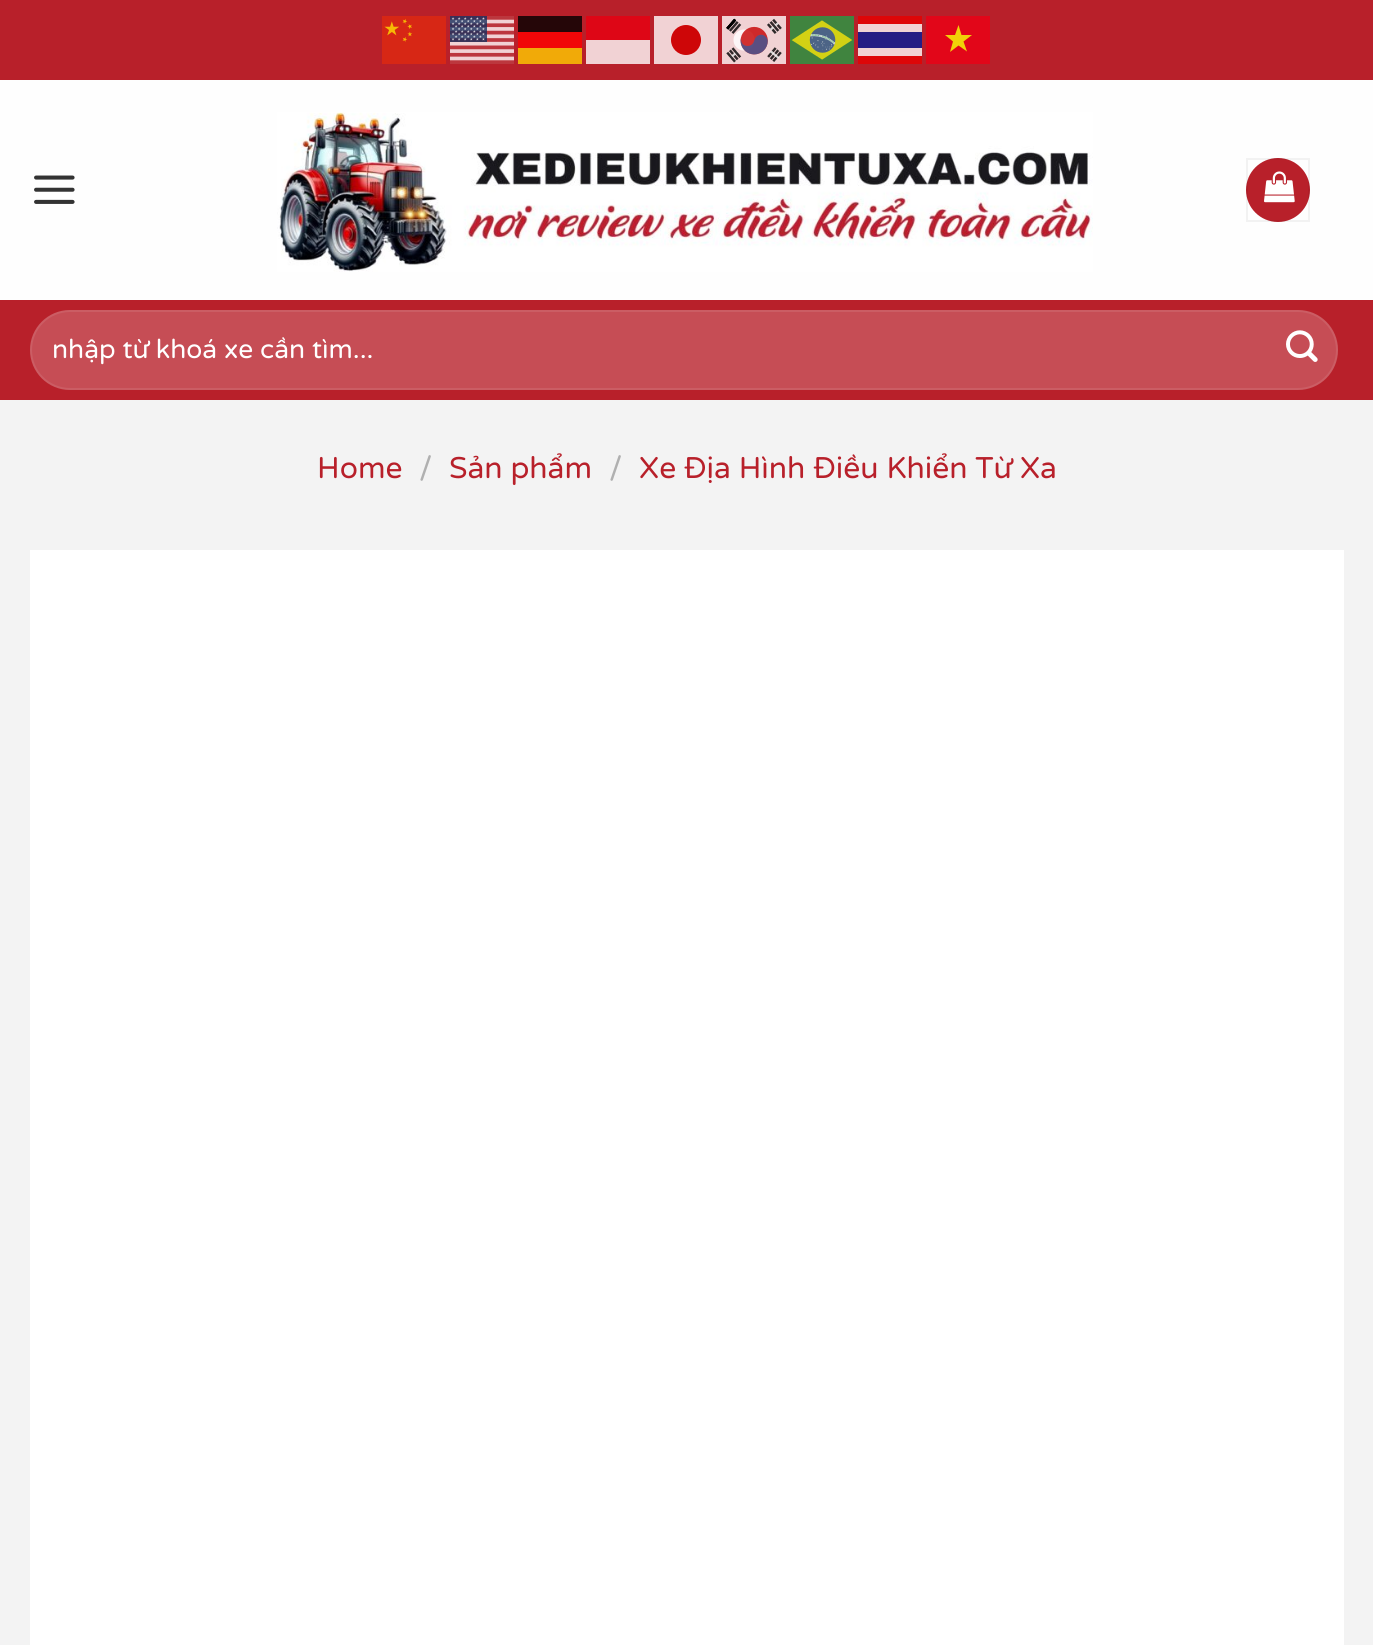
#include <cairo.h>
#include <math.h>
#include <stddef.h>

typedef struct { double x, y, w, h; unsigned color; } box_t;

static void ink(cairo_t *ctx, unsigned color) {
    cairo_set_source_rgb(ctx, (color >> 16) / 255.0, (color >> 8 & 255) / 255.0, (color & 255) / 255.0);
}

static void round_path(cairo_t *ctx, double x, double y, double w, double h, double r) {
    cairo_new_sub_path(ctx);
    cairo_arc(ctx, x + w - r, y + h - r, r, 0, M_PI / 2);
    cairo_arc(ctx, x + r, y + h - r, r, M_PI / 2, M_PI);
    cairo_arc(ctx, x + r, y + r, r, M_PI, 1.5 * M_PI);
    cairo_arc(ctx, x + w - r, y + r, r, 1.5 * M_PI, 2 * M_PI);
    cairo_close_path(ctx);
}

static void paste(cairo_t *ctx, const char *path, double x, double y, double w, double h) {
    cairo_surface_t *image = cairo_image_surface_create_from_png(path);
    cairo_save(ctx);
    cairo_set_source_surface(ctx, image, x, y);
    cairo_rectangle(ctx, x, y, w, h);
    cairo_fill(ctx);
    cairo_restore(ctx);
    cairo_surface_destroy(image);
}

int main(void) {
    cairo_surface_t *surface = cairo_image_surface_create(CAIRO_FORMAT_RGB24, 1373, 1645);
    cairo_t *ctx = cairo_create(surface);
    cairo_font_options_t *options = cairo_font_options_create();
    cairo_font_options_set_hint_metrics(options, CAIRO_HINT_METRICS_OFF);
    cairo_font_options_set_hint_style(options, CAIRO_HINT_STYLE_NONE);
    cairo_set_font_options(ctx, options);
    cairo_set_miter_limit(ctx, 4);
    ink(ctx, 0xF3F3F3);
    cairo_paint(ctx);
    ink(ctx, 0xB8202A);
    cairo_rectangle(ctx, 0, 0, 1373, 80);
    cairo_fill(ctx);
    paste(ctx, "media/1.png", 382, 16, 64, 48);
    paste(ctx, "media/2.png", 450, 16, 64, 48);
    {
        static const box_t items[] = {
            {518, 48, 64, 16, 0xF1AA08},
            {518, 16, 64, 16, 0x250608},
            {518, 32, 64, 16, 0xF10608},
            {586, 16, 64, 24, 0xDE0616},
            {586, 40, 64, 24, 0xF1D2D4},
            {654, 16, 64, 48, 0xF1D2D4},
        };
        for (size_t i = 0; i < sizeof items / sizeof *items; i++) {
            ink(ctx, items[i].color);
            cairo_rectangle(ctx, items[i].x, items[i].y, items[i].w, items[i].h);
            cairo_fill(ctx);
        }
    }
    ink(ctx, 0xCE0608);
    cairo_arc(ctx, 686, 40, 15, 0, 2 * M_PI);
    cairo_fill(ctx);
    paste(ctx, "media/3.png", 722, 16, 64, 48);
    paste(ctx, "media/4.png", 790, 16, 64, 48);
    ink(ctx, 0xF1D2D4);
    cairo_rectangle(ctx, 858, 24, 64, 32);
    cairo_fill(ctx);
    ink(ctx, 0x251C84);
    cairo_rectangle(ctx, 858, 32, 64, 16);
    cairo_fill(ctx);
    ink(ctx, 0xDE0608);
    cairo_set_fill_rule(ctx, CAIRO_FILL_RULE_EVEN_ODD);
    cairo_new_path(ctx);
    cairo_move_to(ctx, 858, 16);
    cairo_line_to(ctx, 922, 16);
    cairo_line_to(ctx, 922, 24);
    cairo_line_to(ctx, 858, 24);
    cairo_close_path(ctx);
    cairo_move_to(ctx, 858, 56);
    cairo_line_to(ctx, 922, 56);
    cairo_line_to(ctx, 922, 64);
    cairo_line_to(ctx, 858, 64);
    cairo_close_path(ctx);
    cairo_fill(ctx);
    ink(ctx, 0xE20619);
    cairo_rectangle(ctx, 926, 16, 64, 48);
    cairo_fill(ctx);
    ink(ctx, 0xF1D208);
    cairo_new_path(ctx);
    cairo_move_to(ctx, 967, 51.5);
    cairo_line_to(ctx, 958.5, 45.5);
    cairo_line_to(ctx, 950, 52);
    cairo_line_to(ctx, 953, 41.5);
    cairo_line_to(ctx, 945, 35);
    cairo_line_to(ctx, 955, 35);
    cairo_line_to(ctx, 958.5, 25);
    cairo_line_to(ctx, 961.5, 35);
    cairo_line_to(ctx, 972, 35);
    cairo_line_to(ctx, 963.5, 41.5);
    cairo_close_path(ctx);
    cairo_fill(ctx);
    ink(ctx, 0xFEFEFE);
    cairo_rectangle(ctx, 0, 80, 1373, 220);
    cairo_fill(ctx);
    paste(ctx, "media/5.png", 34, 175, 41, 29);
    paste(ctx, "media/6.png", 277, 112, 816, 160);
    ink(ctx, 0xB8202A);
    cairo_arc(ctx, 1278, 190, 32, 0, 2 * M_PI);
    cairo_fill(ctx);
    cairo_rectangle(ctx, 1247, 159, 62, 62);
    cairo_set_source_rgba(ctx, 0, 0, 0, 0.05);
    cairo_stroke(ctx);
    paste(ctx, "media/7.png", 1264, 171, 31, 32);
    ink(ctx, 0xB8202A);
    cairo_rectangle(ctx, 0, 300, 1373, 100);
    cairo_fill(ctx);
    ink(ctx, 0xC64D55);
    round_path(ctx, 30, 310, 1308, 80, 40);
    cairo_fill(ctx);
    round_path(ctx, 31, 311, 1306, 78, 39);
    cairo_set_source_rgba(ctx, 1, 1, 1, 0.09);
    cairo_stroke(ctx);
    cairo_select_font_face(ctx, "Varela Round", CAIRO_FONT_SLANT_NORMAL, CAIRO_FONT_WEIGHT_NORMAL);
    cairo_set_font_size(ctx, 26.4);
    ink(ctx, 0xFFFFFF);
    cairo_move_to(ctx, 52, 358);
    cairo_show_text(ctx, "nhập từ khoá xe cần tìm...");
    paste(ctx, "media/8.png", 1286, 330, 32, 32);
    cairo_set_font_size(ctx, 30);
    ink(ctx, 0xB8202A);
    cairo_move_to(ctx, 317, 478);
    cairo_show_text(ctx, "Home");
    ink(ctx, 0xB0B0B0);
    cairo_move_to(ctx, 419, 478);
    cairo_show_text(ctx, "/");
    ink(ctx, 0xB8202A);
    cairo_move_to(ctx, 449, 478);
    cairo_show_text(ctx, "Sản phẩm");
    ink(ctx, 0xB0B0B0);
    cairo_move_to(ctx, 609, 478);
    cairo_show_text(ctx, "/");
    ink(ctx, 0xB8202A);
    cairo_move_to(ctx, 639, 478);
    cairo_show_text(ctx, "Xe Địa Hình Điều Khiển Từ Xa");
    ink(ctx, 0xFFFFFF);
    cairo_rectangle(ctx, 30, 550, 1314, 1095);
    cairo_fill(ctx);
    cairo_surface_write_to_png(surface, "image.png");
    cairo_font_options_destroy(options);
    cairo_destroy(ctx);
    cairo_surface_destroy(surface);
    return 0;
}
